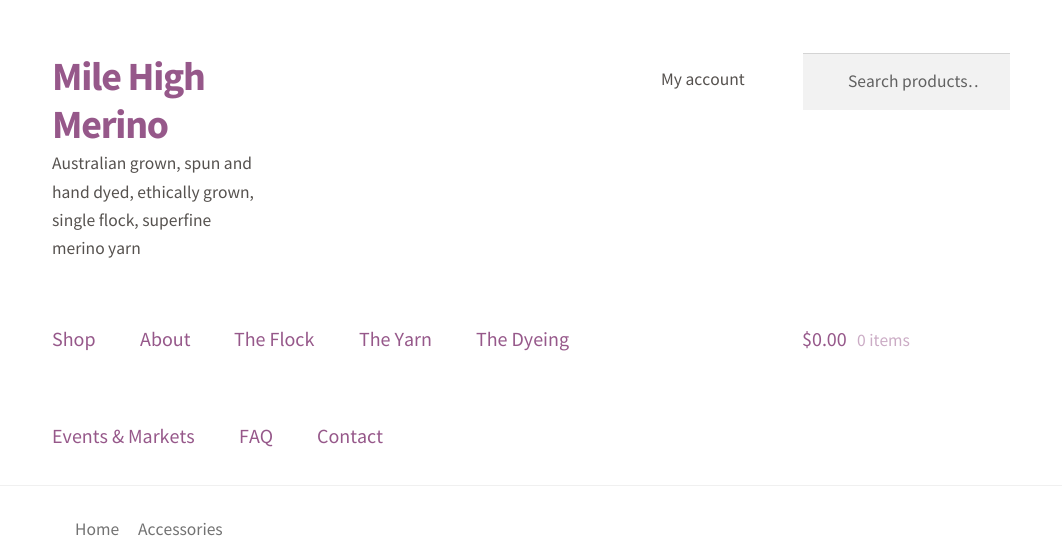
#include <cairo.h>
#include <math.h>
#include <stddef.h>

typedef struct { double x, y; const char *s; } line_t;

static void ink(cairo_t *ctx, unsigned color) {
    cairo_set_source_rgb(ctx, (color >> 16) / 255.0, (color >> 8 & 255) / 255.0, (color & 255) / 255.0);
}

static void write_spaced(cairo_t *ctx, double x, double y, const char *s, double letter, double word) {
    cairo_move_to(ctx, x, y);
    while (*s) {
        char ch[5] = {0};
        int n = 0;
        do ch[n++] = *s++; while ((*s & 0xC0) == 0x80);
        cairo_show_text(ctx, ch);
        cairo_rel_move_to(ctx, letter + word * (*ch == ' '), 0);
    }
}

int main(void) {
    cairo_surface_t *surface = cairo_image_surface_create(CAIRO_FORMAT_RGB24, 1062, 544);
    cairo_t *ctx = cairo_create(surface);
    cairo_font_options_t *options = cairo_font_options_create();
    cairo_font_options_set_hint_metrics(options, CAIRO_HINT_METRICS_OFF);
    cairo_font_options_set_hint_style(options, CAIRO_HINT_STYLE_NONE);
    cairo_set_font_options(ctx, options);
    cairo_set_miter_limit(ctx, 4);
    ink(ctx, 0xFFFFFF);
    cairo_paint(ctx);
    ink(ctx, 0xF0F0F0);
    cairo_rectangle(ctx, 0, 485, 1062, 1);
    cairo_fill(ctx);
    cairo_select_font_face(ctx, "Source Sans Pro", CAIRO_FONT_SLANT_NORMAL, CAIRO_FONT_WEIGHT_BOLD);
    cairo_set_font_size(ctx, 40);
    ink(ctx, 0x96588A);
    write_spaced(ctx, 52, 90, "Mile High", -1.25, 0);
    write_spaced(ctx, 52, 138, "Merino", -1.25, 0);
    cairo_select_font_face(ctx, "Source Sans Pro", CAIRO_FONT_SLANT_NORMAL, CAIRO_FONT_WEIGHT_NORMAL);
    cairo_set_font_size(ctx, 17.5);
    ink(ctx, 0x55514E);
    {
        static const line_t items[] = {
            {52, 169, "Australian grown, spun and"},
            {52, 198, "hand dyed, ethically grown,"},
            {52, 226, "single flock, superfine"},
            {52, 254, "merino yarn"},
            {661, 85, "My account"},
        };
        for (size_t i = 0; i < sizeof items / sizeof *items; i++) {
            cairo_move_to(ctx, items[i].x, items[i].y);
            cairo_show_text(ctx, items[i].s);
        }
    }
    ink(ctx, 0xF2F2F2);
    cairo_rectangle(ctx, 803, 54, 207, 56);
    cairo_fill(ctx);
    ink(ctx, 0xD4D4D4);
    cairo_rectangle(ctx, 803, 53, 207, 1);
    cairo_fill(ctx);
    cairo_save(ctx);
    cairo_rectangle(ctx, 848, 70, 132, 23);
    cairo_clip(ctx);
    ink(ctx, 0x616161);
    cairo_move_to(ctx, 848, 87);
    cairo_show_text(ctx, "Search products…");
    cairo_restore(ctx);
    cairo_set_font_size(ctx, 20);
    ink(ctx, 0x96588A);
    {
        static const line_t items[] = {
            {52, 346, "Shop"},
            {140, 346, "About"},
            {234, 346, "The Flock"},
            {359, 346, "The Yarn"},
            {476, 346, "The Dyeing"},
            {52, 443, "Events & Markets"},
            {239, 443, "FAQ"},
            {317, 443, "Contact"},
            {802, 346, "$0.00"},
        };
        for (size_t i = 0; i < sizeof items / sizeof *items; i++) {
            cairo_move_to(ctx, items[i].x, items[i].y);
            cairo_show_text(ctx, items[i].s);
        }
    }
    cairo_set_font_size(ctx, 17.5);
    ink(ctx, 0xCBACC5);
    cairo_move_to(ctx, 857, 346);
    cairo_show_text(ctx, "0 items");
    ink(ctx, 0x727272);
    cairo_move_to(ctx, 75, 535);
    cairo_show_text(ctx, "Home");
    cairo_move_to(ctx, 138, 535);
    cairo_show_text(ctx, "Accessories");
    cairo_surface_write_to_png(surface, "image.png");
    cairo_font_options_destroy(options);
    cairo_destroy(ctx);
    cairo_surface_destroy(surface);
    return 0;
}
